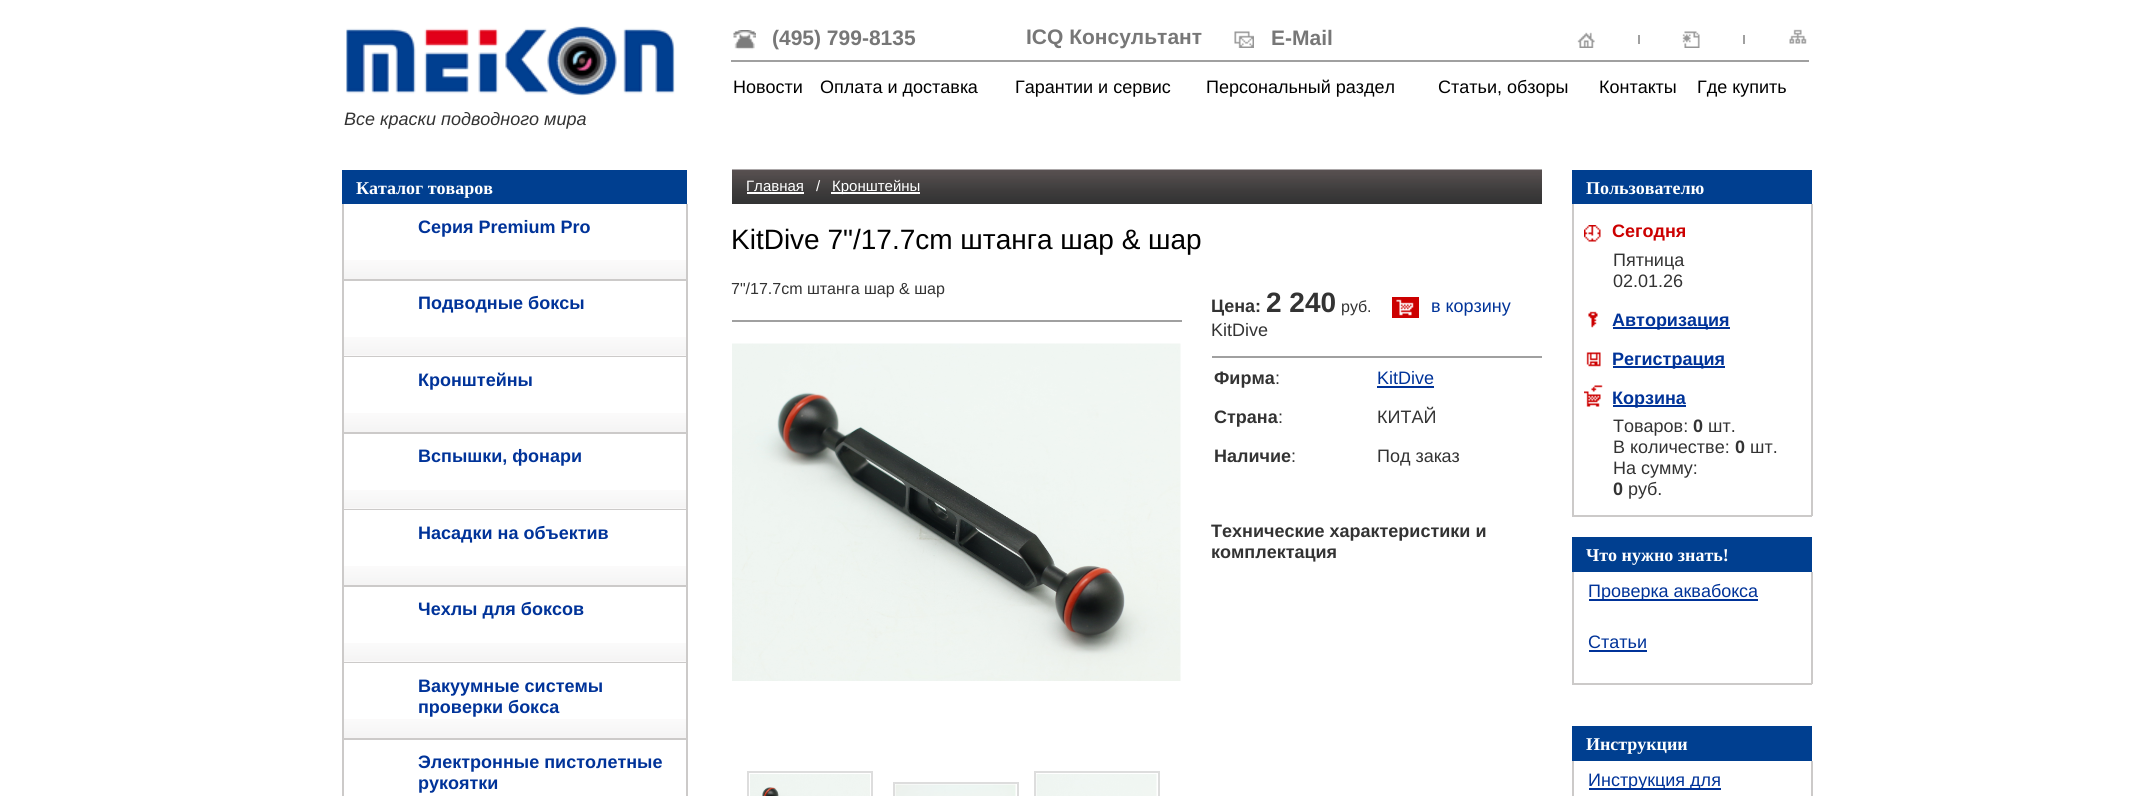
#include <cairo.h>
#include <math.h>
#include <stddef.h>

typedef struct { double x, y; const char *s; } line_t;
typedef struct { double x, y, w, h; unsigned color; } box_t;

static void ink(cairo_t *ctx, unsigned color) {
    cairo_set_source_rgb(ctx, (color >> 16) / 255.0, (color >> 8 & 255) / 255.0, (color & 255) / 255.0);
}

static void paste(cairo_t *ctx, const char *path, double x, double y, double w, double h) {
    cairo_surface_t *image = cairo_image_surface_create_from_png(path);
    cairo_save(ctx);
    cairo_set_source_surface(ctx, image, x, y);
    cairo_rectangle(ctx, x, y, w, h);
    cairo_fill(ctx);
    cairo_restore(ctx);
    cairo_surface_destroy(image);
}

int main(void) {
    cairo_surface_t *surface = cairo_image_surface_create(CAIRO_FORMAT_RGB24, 2152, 796);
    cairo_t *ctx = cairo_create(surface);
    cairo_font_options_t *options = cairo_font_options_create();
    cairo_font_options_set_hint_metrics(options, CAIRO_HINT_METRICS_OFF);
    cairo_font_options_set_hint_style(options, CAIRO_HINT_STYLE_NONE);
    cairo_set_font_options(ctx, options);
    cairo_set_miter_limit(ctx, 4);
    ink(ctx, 0xFFFFFF);
    cairo_paint(ctx);
    paste(ctx, "media/1.png", 733, 30, 23, 20);
    cairo_select_font_face(ctx, "Liberation Sans", CAIRO_FONT_SLANT_NORMAL, CAIRO_FONT_WEIGHT_BOLD);
    cairo_set_font_size(ctx, 21);
    ink(ctx, 0x777777);
    cairo_move_to(ctx, 772, 45);
    cairo_show_text(ctx, "(495) 799-8135");
    cairo_move_to(ctx, 1026, 44);
    cairo_show_text(ctx, "ICQ Консультант");
    paste(ctx, "media/2.png", 1234, 31, 20, 17);
    cairo_move_to(ctx, 1271, 45);
    cairo_show_text(ctx, "E-Mail");
    paste(ctx, "media/3.png", 1577, 32, 18, 16);
    ink(ctx, 0xA0A0A0);
    cairo_rectangle(ctx, 1638, 35, 2, 9);
    cairo_fill(ctx);
    paste(ctx, "media/4.png", 1682, 31, 18, 17);
    cairo_rectangle(ctx, 1743, 35, 2, 9);
    cairo_fill(ctx);
    paste(ctx, "media/5.png", 1789, 29, 18, 15);
    paste(ctx, "media/6.png", 346, 26, 329, 70);
    cairo_select_font_face(ctx, "Liberation Sans", CAIRO_FONT_SLANT_ITALIC, CAIRO_FONT_WEIGHT_NORMAL);
    cairo_set_font_size(ctx, 18);
    ink(ctx, 0x333333);
    cairo_move_to(ctx, 344, 125);
    cairo_show_text(ctx, "Все краски подводного мира");
    ink(ctx, 0xA0A0A0);
    cairo_rectangle(ctx, 731, 60, 1078, 2);
    cairo_fill(ctx);
    cairo_select_font_face(ctx, "Liberation Sans", CAIRO_FONT_SLANT_NORMAL, CAIRO_FONT_WEIGHT_NORMAL);
    ink(ctx, 0x000000);
    {
        static const line_t items[] = {
            {733, 93, "Новости"},
            {820, 93, "Оплата и доставка"},
            {1015, 93, "Гарантии и сервис"},
            {1206, 93, "Персональный раздел"},
            {1438, 93, "Статьи, обзоры"},
            {1599, 93, "Контакты"},
            {1697, 93, "Где купить"},
        };
        for (size_t i = 0; i < sizeof items / sizeof *items; i++) {
            cairo_move_to(ctx, items[i].x, items[i].y);
            cairo_show_text(ctx, items[i].s);
        }
    }
    ink(ctx, 0x003F90);
    cairo_rectangle(ctx, 342, 170, 345, 34);
    cairo_fill(ctx);
    cairo_select_font_face(ctx, "Liberation Serif", CAIRO_FONT_SLANT_NORMAL, CAIRO_FONT_WEIGHT_BOLD);
    ink(ctx, 0xFFFFFF);
    cairo_move_to(ctx, 356, 194);
    cairo_show_text(ctx, "Каталог товаров");
    paste(ctx, "media/7.png", 344, 260, 342, 19);
    {
        static const box_t items[] = {
            {686, 204, 2, 592, 0xCCCAC9},
            {342, 279, 345, 2, 0xCCCAC9},
            {342, 204, 2, 77, 0xCCCAC9},
        };
        for (size_t i = 0; i < sizeof items / sizeof *items; i++) {
            ink(ctx, items[i].color);
            cairo_rectangle(ctx, items[i].x, items[i].y, items[i].w, items[i].h);
            cairo_fill(ctx);
        }
    }
    cairo_select_font_face(ctx, "Liberation Sans", CAIRO_FONT_SLANT_NORMAL, CAIRO_FONT_WEIGHT_BOLD);
    ink(ctx, 0x003399);
    cairo_move_to(ctx, 418, 233);
    cairo_show_text(ctx, "Серия Premium Pro");
    paste(ctx, "media/8.png", 344, 337, 342, 19);
    ink(ctx, 0xCCCAC9);
    cairo_rectangle(ctx, 342, 356, 345, 1);
    cairo_fill(ctx);
    cairo_rectangle(ctx, 342, 281, 2, 76);
    cairo_fill(ctx);
    ink(ctx, 0x003399);
    cairo_move_to(ctx, 418, 309);
    cairo_show_text(ctx, "Подводные боксы");
    paste(ctx, "media/7.png", 344, 413, 342, 19);
    ink(ctx, 0xCCCAC9);
    cairo_rectangle(ctx, 342, 432, 345, 2);
    cairo_fill(ctx);
    cairo_rectangle(ctx, 342, 357, 2, 77);
    cairo_fill(ctx);
    ink(ctx, 0x003399);
    cairo_move_to(ctx, 418, 386);
    cairo_show_text(ctx, "Кронштейны");
    paste(ctx, "media/8.png", 344, 490, 342, 19);
    ink(ctx, 0xCCCAC9);
    cairo_rectangle(ctx, 342, 509, 345, 1);
    cairo_fill(ctx);
    cairo_rectangle(ctx, 342, 434, 2, 76);
    cairo_fill(ctx);
    ink(ctx, 0x003399);
    cairo_move_to(ctx, 418, 462);
    cairo_show_text(ctx, "Вспышки, фонари");
    paste(ctx, "media/7.png", 344, 566, 342, 19);
    ink(ctx, 0xCCCAC9);
    cairo_rectangle(ctx, 342, 585, 345, 2);
    cairo_fill(ctx);
    cairo_rectangle(ctx, 342, 510, 2, 77);
    cairo_fill(ctx);
    ink(ctx, 0x003399);
    cairo_move_to(ctx, 418, 539);
    cairo_show_text(ctx, "Насадки на объектив");
    paste(ctx, "media/8.png", 344, 643, 342, 19);
    ink(ctx, 0xCCCAC9);
    cairo_rectangle(ctx, 342, 662, 345, 1);
    cairo_fill(ctx);
    cairo_rectangle(ctx, 342, 587, 2, 76);
    cairo_fill(ctx);
    ink(ctx, 0x003399);
    cairo_move_to(ctx, 418, 615);
    cairo_show_text(ctx, "Чехлы для боксов");
    paste(ctx, "media/7.png", 344, 719, 342, 19);
    ink(ctx, 0xCCCAC9);
    cairo_rectangle(ctx, 342, 738, 345, 2);
    cairo_fill(ctx);
    cairo_rectangle(ctx, 342, 663, 2, 133);
    cairo_fill(ctx);
    ink(ctx, 0x003399);
    {
        static const line_t items[] = {
            {418, 692, "Вакуумные системы"},
            {418, 713, "проверки бокса"},
            {418, 768, "Электронные пистолетные"},
            {418, 789, "рукоятки"},
        };
        for (size_t i = 0; i < sizeof items / sizeof *items; i++) {
            cairo_move_to(ctx, items[i].x, items[i].y);
            cairo_show_text(ctx, items[i].s);
        }
    }
    paste(ctx, "media/9.png", 732, 169, 810, 35);
    cairo_select_font_face(ctx, "Liberation Sans", CAIRO_FONT_SLANT_NORMAL, CAIRO_FONT_WEIGHT_NORMAL);
    cairo_set_font_size(ctx, 15);
    ink(ctx, 0xFFFFFF);
    cairo_move_to(ctx, 746, 191);
    cairo_show_text(ctx, "Главная");
    cairo_rectangle(ctx, 747, 192, 57, 2);
    cairo_fill(ctx);
    cairo_move_to(ctx, 816, 191);
    cairo_show_text(ctx, "/");
    cairo_rectangle(ctx, 831, 192, 89, 2);
    cairo_fill(ctx);
    cairo_move_to(ctx, 832, 191);
    cairo_show_text(ctx, "Кронштейны");
    cairo_set_font_size(ctx, 28);
    ink(ctx, 0x000000);
    cairo_move_to(ctx, 731, 249);
    cairo_show_text(ctx, "KitDive 7\"/17.7cm штанга шар & шар");
    ink(ctx, 0xA0A0A0);
    cairo_rectangle(ctx, 732, 320, 450, 2);
    cairo_fill(ctx);
    cairo_set_font_size(ctx, 16);
    ink(ctx, 0x333333);
    cairo_move_to(ctx, 731, 294);
    cairo_show_text(ctx, "7\"/17.7cm штанга шар & шар");
    paste(ctx, "media/10.png", 732, 343, 449, 338);
    cairo_rectangle(ctx, 748, 772, 124, 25);
    ink(ctx, 0xDDDDDD);
    cairo_stroke(ctx);
    paste(ctx, "media/11.png", 750, 774, 120, 22);
    cairo_rectangle(ctx, 894, 783, 124, 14);
    cairo_stroke(ctx);
    paste(ctx, "media/12.png", 895, 784, 121, 12);
    cairo_rectangle(ctx, 1035, 772, 124, 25);
    cairo_stroke(ctx);
    paste(ctx, "media/13.png", 1036, 774, 121, 22);
    cairo_select_font_face(ctx, "Liberation Sans", CAIRO_FONT_SLANT_NORMAL, CAIRO_FONT_WEIGHT_BOLD);
    cairo_set_font_size(ctx, 18);
    ink(ctx, 0x333333);
    cairo_move_to(ctx, 1211, 312);
    cairo_show_text(ctx, "Цена:");
    cairo_set_font_size(ctx, 28);
    cairo_move_to(ctx, 1266, 312);
    cairo_show_text(ctx, "2 240");
    cairo_select_font_face(ctx, "Liberation Sans", CAIRO_FONT_SLANT_NORMAL, CAIRO_FONT_WEIGHT_NORMAL);
    cairo_set_font_size(ctx, 16);
    cairo_move_to(ctx, 1341, 312);
    cairo_show_text(ctx, "руб.");
    paste(ctx, "media/14.png", 1392, 297, 27, 21);
    cairo_set_font_size(ctx, 18);
    ink(ctx, 0x003399);
    cairo_move_to(ctx, 1431, 312);
    cairo_show_text(ctx, "в корзину");
    ink(ctx, 0x333333);
    cairo_move_to(ctx, 1211, 336);
    cairo_show_text(ctx, "KitDive");
    ink(ctx, 0xA0A0A0);
    cairo_rectangle(ctx, 1212, 356, 330, 2);
    cairo_fill(ctx);
    cairo_select_font_face(ctx, "Liberation Sans", CAIRO_FONT_SLANT_NORMAL, CAIRO_FONT_WEIGHT_BOLD);
    ink(ctx, 0x333333);
    cairo_move_to(ctx, 1214, 384);
    cairo_show_text(ctx, "Фирма");
    cairo_select_font_face(ctx, "Liberation Sans", CAIRO_FONT_SLANT_NORMAL, CAIRO_FONT_WEIGHT_NORMAL);
    cairo_move_to(ctx, 1275, 384);
    cairo_show_text(ctx, ":");
    ink(ctx, 0x003399);
    cairo_move_to(ctx, 1377, 384);
    cairo_show_text(ctx, "KitDive");
    cairo_rectangle(ctx, 1377, 386, 57, 2);
    cairo_fill(ctx);
    cairo_select_font_face(ctx, "Liberation Sans", CAIRO_FONT_SLANT_NORMAL, CAIRO_FONT_WEIGHT_BOLD);
    ink(ctx, 0x333333);
    cairo_move_to(ctx, 1214, 423);
    cairo_show_text(ctx, "Страна");
    cairo_select_font_face(ctx, "Liberation Sans", CAIRO_FONT_SLANT_NORMAL, CAIRO_FONT_WEIGHT_NORMAL);
    cairo_move_to(ctx, 1278, 423);
    cairo_show_text(ctx, ":");
    cairo_move_to(ctx, 1377, 423);
    cairo_show_text(ctx, "КИТАЙ");
    cairo_select_font_face(ctx, "Liberation Sans", CAIRO_FONT_SLANT_NORMAL, CAIRO_FONT_WEIGHT_BOLD);
    cairo_move_to(ctx, 1214, 462);
    cairo_show_text(ctx, "Наличие");
    cairo_select_font_face(ctx, "Liberation Sans", CAIRO_FONT_SLANT_NORMAL, CAIRO_FONT_WEIGHT_NORMAL);
    cairo_move_to(ctx, 1291, 462);
    cairo_show_text(ctx, ":");
    cairo_move_to(ctx, 1377, 462);
    cairo_show_text(ctx, "Под заказ");
    cairo_select_font_face(ctx, "Liberation Sans", CAIRO_FONT_SLANT_NORMAL, CAIRO_FONT_WEIGHT_BOLD);
    cairo_move_to(ctx, 1211, 537);
    cairo_show_text(ctx, "Технические характеристики и");
    cairo_move_to(ctx, 1211, 558);
    cairo_show_text(ctx, "комплектация");
    ink(ctx, 0x003F90);
    cairo_rectangle(ctx, 1572, 170, 240, 34);
    cairo_fill(ctx);
    cairo_select_font_face(ctx, "Liberation Serif", CAIRO_FONT_SLANT_NORMAL, CAIRO_FONT_WEIGHT_BOLD);
    ink(ctx, 0xFFFFFF);
    cairo_move_to(ctx, 1586, 194);
    cairo_show_text(ctx, "Пользователю");
    {
        static const box_t items[] = {
            {1811, 204, 2, 312, 0xCCCAC9},
            {1572, 515, 240, 2, 0xCCCAC9},
            {1572, 204, 2, 312, 0xCCCAC9},
        };
        for (size_t i = 0; i < sizeof items / sizeof *items; i++) {
            ink(ctx, items[i].color);
            cairo_rectangle(ctx, items[i].x, items[i].y, items[i].w, items[i].h);
            cairo_fill(ctx);
        }
    }
    paste(ctx, "media/15.png", 1584, 225, 17, 17);
    cairo_select_font_face(ctx, "Liberation Sans", CAIRO_FONT_SLANT_NORMAL, CAIRO_FONT_WEIGHT_BOLD);
    ink(ctx, 0xCC0000);
    cairo_move_to(ctx, 1612, 237);
    cairo_show_text(ctx, "Сегодня");
    cairo_select_font_face(ctx, "Liberation Sans", CAIRO_FONT_SLANT_NORMAL, CAIRO_FONT_WEIGHT_NORMAL);
    ink(ctx, 0x333333);
    cairo_move_to(ctx, 1613, 266);
    cairo_show_text(ctx, "Пятница");
    cairo_move_to(ctx, 1613, 287);
    cairo_show_text(ctx, "02.01.26");
    paste(ctx, "media/16.png", 1588, 311, 10, 17);
    ink(ctx, 0x003399);
    cairo_rectangle(ctx, 1613, 327, 117, 2);
    cairo_fill(ctx);
    cairo_select_font_face(ctx, "Liberation Sans", CAIRO_FONT_SLANT_NORMAL, CAIRO_FONT_WEIGHT_BOLD);
    cairo_move_to(ctx, 1612, 326);
    cairo_show_text(ctx, "Авторизация");
    paste(ctx, "media/17.png", 1586, 352, 15, 15);
    cairo_rectangle(ctx, 1613, 366, 112, 2);
    cairo_fill(ctx);
    cairo_move_to(ctx, 1612, 365);
    cairo_show_text(ctx, "Регистрация");
    paste(ctx, "media/18.png", 1584, 385, 19, 22);
    cairo_rectangle(ctx, 1613, 405, 73, 2);
    cairo_fill(ctx);
    cairo_move_to(ctx, 1612, 404);
    cairo_show_text(ctx, "Корзина");
    cairo_select_font_face(ctx, "Liberation Sans", CAIRO_FONT_SLANT_NORMAL, CAIRO_FONT_WEIGHT_NORMAL);
    ink(ctx, 0x333333);
    cairo_move_to(ctx, 1613, 432);
    cairo_show_text(ctx, "Товаров:");
    cairo_select_font_face(ctx, "Liberation Sans", CAIRO_FONT_SLANT_NORMAL, CAIRO_FONT_WEIGHT_BOLD);
    cairo_move_to(ctx, 1693, 432);
    cairo_show_text(ctx, "0");
    cairo_select_font_face(ctx, "Liberation Sans", CAIRO_FONT_SLANT_NORMAL, CAIRO_FONT_WEIGHT_NORMAL);
    cairo_move_to(ctx, 1708, 432);
    cairo_show_text(ctx, "шт.");
    cairo_move_to(ctx, 1613, 453);
    cairo_show_text(ctx, "В количестве:");
    cairo_select_font_face(ctx, "Liberation Sans", CAIRO_FONT_SLANT_NORMAL, CAIRO_FONT_WEIGHT_BOLD);
    cairo_move_to(ctx, 1735, 453);
    cairo_show_text(ctx, "0");
    cairo_select_font_face(ctx, "Liberation Sans", CAIRO_FONT_SLANT_NORMAL, CAIRO_FONT_WEIGHT_NORMAL);
    cairo_move_to(ctx, 1750, 453);
    cairo_show_text(ctx, "шт.");
    cairo_move_to(ctx, 1613, 474);
    cairo_show_text(ctx, "На сумму:");
    cairo_select_font_face(ctx, "Liberation Sans", CAIRO_FONT_SLANT_NORMAL, CAIRO_FONT_WEIGHT_BOLD);
    cairo_move_to(ctx, 1613, 495);
    cairo_show_text(ctx, "0");
    cairo_select_font_face(ctx, "Liberation Sans", CAIRO_FONT_SLANT_NORMAL, CAIRO_FONT_WEIGHT_NORMAL);
    cairo_move_to(ctx, 1628, 495);
    cairo_show_text(ctx, "руб.");
    ink(ctx, 0x003F90);
    cairo_rectangle(ctx, 1572, 537, 240, 35);
    cairo_fill(ctx);
    cairo_select_font_face(ctx, "Liberation Serif", CAIRO_FONT_SLANT_NORMAL, CAIRO_FONT_WEIGHT_BOLD);
    ink(ctx, 0xFFFFFF);
    cairo_move_to(ctx, 1586, 561);
    cairo_show_text(ctx, "Что нужно знать!");
    {
        static const box_t items[] = {
            {1811, 572, 2, 112, 0xCCCAC9},
            {1572, 683, 240, 2, 0xCCCAC9},
            {1572, 572, 2, 112, 0xCCCAC9},
            {1589, 599, 169, 2, 0x003399},
        };
        for (size_t i = 0; i < sizeof items / sizeof *items; i++) {
            ink(ctx, items[i].color);
            cairo_rectangle(ctx, items[i].x, items[i].y, items[i].w, items[i].h);
            cairo_fill(ctx);
        }
    }
    cairo_select_font_face(ctx, "Liberation Sans", CAIRO_FONT_SLANT_NORMAL, CAIRO_FONT_WEIGHT_NORMAL);
    cairo_move_to(ctx, 1588, 597);
    cairo_show_text(ctx, "Проверка аквабокса");
    cairo_move_to(ctx, 1588, 648);
    cairo_show_text(ctx, "Статьи");
    cairo_rectangle(ctx, 1589, 650, 58, 2);
    cairo_fill(ctx);
    ink(ctx, 0x003F90);
    cairo_rectangle(ctx, 1572, 726, 240, 35);
    cairo_fill(ctx);
    cairo_select_font_face(ctx, "Liberation Serif", CAIRO_FONT_SLANT_NORMAL, CAIRO_FONT_WEIGHT_BOLD);
    ink(ctx, 0xFFFFFF);
    cairo_move_to(ctx, 1586, 750);
    cairo_show_text(ctx, "Инструкции");
    {
        static const box_t items[] = {
            {1811, 761, 2, 35, 0xCCCAC9},
            {1572, 761, 2, 35, 0xCCCAC9},
            {1589, 788, 132, 2, 0x003399},
        };
        for (size_t i = 0; i < sizeof items / sizeof *items; i++) {
            ink(ctx, items[i].color);
            cairo_rectangle(ctx, items[i].x, items[i].y, items[i].w, items[i].h);
            cairo_fill(ctx);
        }
    }
    cairo_select_font_face(ctx, "Liberation Sans", CAIRO_FONT_SLANT_NORMAL, CAIRO_FONT_WEIGHT_NORMAL);
    cairo_move_to(ctx, 1588, 786);
    cairo_show_text(ctx, "Инструкция для");
    cairo_surface_write_to_png(surface, "image.png");
    cairo_font_options_destroy(options);
    cairo_destroy(ctx);
    cairo_surface_destroy(surface);
    return 0;
}
